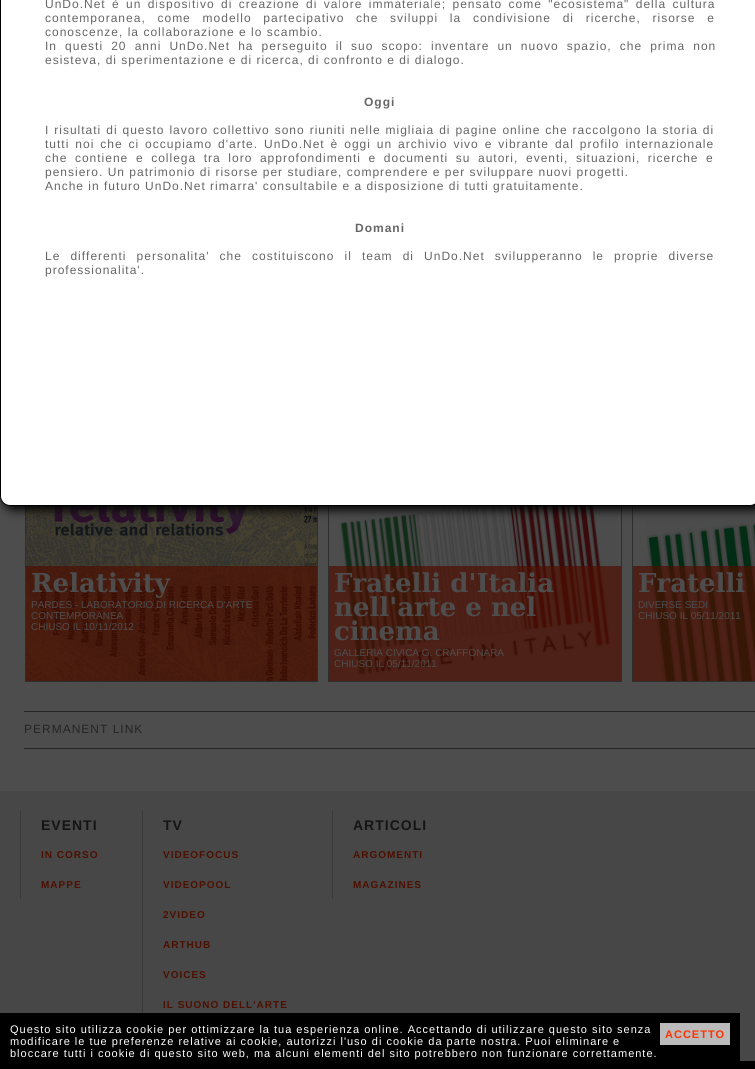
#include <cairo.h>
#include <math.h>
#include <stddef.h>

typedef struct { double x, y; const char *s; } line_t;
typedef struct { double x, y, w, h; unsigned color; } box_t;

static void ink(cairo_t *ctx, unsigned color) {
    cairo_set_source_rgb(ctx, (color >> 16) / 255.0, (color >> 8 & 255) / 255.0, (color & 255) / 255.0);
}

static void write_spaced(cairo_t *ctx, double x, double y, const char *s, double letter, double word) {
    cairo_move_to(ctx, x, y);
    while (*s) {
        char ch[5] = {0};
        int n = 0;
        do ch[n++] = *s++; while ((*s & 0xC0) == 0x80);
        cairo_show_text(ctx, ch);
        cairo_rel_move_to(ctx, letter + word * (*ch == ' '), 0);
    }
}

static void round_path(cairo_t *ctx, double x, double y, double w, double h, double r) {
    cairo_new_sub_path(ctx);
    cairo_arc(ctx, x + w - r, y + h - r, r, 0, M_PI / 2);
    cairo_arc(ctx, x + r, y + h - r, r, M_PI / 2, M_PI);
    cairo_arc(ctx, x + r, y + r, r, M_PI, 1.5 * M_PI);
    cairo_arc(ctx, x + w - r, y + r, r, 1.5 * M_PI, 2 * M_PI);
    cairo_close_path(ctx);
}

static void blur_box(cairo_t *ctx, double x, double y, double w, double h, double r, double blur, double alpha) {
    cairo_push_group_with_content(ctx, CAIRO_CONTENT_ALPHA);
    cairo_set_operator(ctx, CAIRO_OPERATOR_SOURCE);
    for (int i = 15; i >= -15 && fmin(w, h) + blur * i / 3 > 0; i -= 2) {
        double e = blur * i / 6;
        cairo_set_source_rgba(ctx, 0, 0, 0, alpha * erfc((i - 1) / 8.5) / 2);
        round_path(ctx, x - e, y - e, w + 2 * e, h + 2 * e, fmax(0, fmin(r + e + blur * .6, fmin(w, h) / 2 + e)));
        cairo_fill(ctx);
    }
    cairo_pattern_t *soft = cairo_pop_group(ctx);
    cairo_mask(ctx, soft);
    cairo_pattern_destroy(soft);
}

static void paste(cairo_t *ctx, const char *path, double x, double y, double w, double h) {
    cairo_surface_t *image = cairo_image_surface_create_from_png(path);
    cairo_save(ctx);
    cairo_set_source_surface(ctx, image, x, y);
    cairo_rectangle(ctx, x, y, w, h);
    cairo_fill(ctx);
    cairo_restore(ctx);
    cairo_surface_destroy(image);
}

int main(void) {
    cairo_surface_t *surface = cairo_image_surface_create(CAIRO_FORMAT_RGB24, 755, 1069);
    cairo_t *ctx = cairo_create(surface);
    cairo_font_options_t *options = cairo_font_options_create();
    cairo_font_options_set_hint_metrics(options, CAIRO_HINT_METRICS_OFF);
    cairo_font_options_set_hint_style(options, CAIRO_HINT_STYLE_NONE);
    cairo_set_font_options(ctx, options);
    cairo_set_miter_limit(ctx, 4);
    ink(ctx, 0x4D4D4D);
    cairo_paint(ctx);
    cairo_rectangle(ctx, 25.5, 420.5, 292, 261);
    ink(ctx, 0x2E2E2E);
    cairo_set_line_width(ctx, 1);
    cairo_stroke(ctx);
    paste(ctx, "media/1.png", 26, 506, 291, 175);
    cairo_rectangle(ctx, 328.5, 420.5, 293, 261);
    cairo_stroke(ctx);
    paste(ctx, "media/2.png", 339, 506, 278, 170);
    cairo_rectangle(ctx, 632.5, 420.5, 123, 261);
    cairo_stroke(ctx);
    paste(ctx, "media/3.png", 646, 520, 109, 161);
    ink(ctx, 0x000000);
    blur_box(ctx, 4, -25, 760, 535, 10, 5, 1);
    ink(ctx, 0xFFFFFF);
    round_path(ctx, 0.5, -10.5, 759, 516, 9.5);
    cairo_fill_preserve(ctx);
    ink(ctx, 0x000000);
    cairo_stroke(ctx);
    cairo_select_font_face(ctx, "Liberation Sans", CAIRO_FONT_SLANT_NORMAL, CAIRO_FONT_WEIGHT_NORMAL);
    cairo_set_font_size(ctx, 12);
    ink(ctx, 0x666666);
    write_spaced(ctx, 45, 8, "UnDo.Net è un dispositivo di creazione di valore immateriale; pensato come \"ecosistema\" della cultura", 1, 2);
    write_spaced(ctx, 45, 22, "contemporanea, come modello partecipativo che sviluppi la condivisione di ricerche, risorse e", 1, 7.4);
    write_spaced(ctx, 45, 36, "conoscenze, la collaborazione e lo scambio.", 1, 0);
    write_spaced(ctx, 45, 50, "In questi 20 anni UnDo.Net ha perseguito il suo scopo: inventare un nuovo spazio, che prima non", 1, 3.75);
    write_spaced(ctx, 45, 64, "esisteva, di sperimentazione e di ricerca, di confronto e di dialogo.", 1, 0);
    cairo_select_font_face(ctx, "Liberation Sans", CAIRO_FONT_SLANT_NORMAL, CAIRO_FONT_WEIGHT_BOLD);
    write_spaced(ctx, 364, 106, "Oggi", 1, 0);
    cairo_select_font_face(ctx, "Liberation Sans", CAIRO_FONT_SLANT_NORMAL, CAIRO_FONT_WEIGHT_NORMAL);
    write_spaced(ctx, 45, 134, "I risultati di questo lavoro collettivo sono riuniti nelle migliaia di pagine online che raccolgono la storia di", 1, 0.6);
    write_spaced(ctx, 45, 148, "tutti noi che ci occupiamo d'arte. UnDo.Net è oggi un archivio vivo e vibrante dal profilo internazionale", 1, 1.6);
    write_spaced(ctx, 45, 162, "che contiene e collega tra loro approfondimenti e documenti su autori, eventi, situazioni, ricerche e", 1, 3.25);
    write_spaced(ctx, 45, 176, "pensiero. Un patrimonio di risorse per studiare, comprendere e per sviluppare nuovi progetti.", 1, 0);
    write_spaced(ctx, 45, 190, "Anche in futuro UnDo.Net rimarra' consultabile e a disposizione di tutti gratuitamente.", 1, 0);
    cairo_select_font_face(ctx, "Liberation Sans", CAIRO_FONT_SLANT_NORMAL, CAIRO_FONT_WEIGHT_BOLD);
    write_spaced(ctx, 355, 232, "Domani", 1, 0);
    cairo_select_font_face(ctx, "Liberation Sans", CAIRO_FONT_SLANT_NORMAL, CAIRO_FONT_WEIGHT_NORMAL);
    write_spaced(ctx, 45, 260, "Le differenti personalita' che costituiscono il team di UnDo.Net svilupperanno le proprie diverse", 1, 5.75);
    write_spaced(ctx, 45, 274, "professionalita'.", 1, 0);
    cairo_set_source_rgba(ctx, 0.302, 0.059, 0, 0.7);
    cairo_rectangle(ctx, 26, 566, 291, 115);
    cairo_fill(ctx);
    cairo_select_font_face(ctx, "DejaVu Serif", CAIRO_FONT_SLANT_NORMAL, CAIRO_FONT_WEIGHT_BOLD);
    cairo_set_font_size(ctx, 26);
    ink(ctx, 0x4D4D4D);
    cairo_move_to(ctx, 31, 592);
    cairo_show_text(ctx, "Relativity");
    cairo_select_font_face(ctx, "Liberation Sans", CAIRO_FONT_SLANT_NORMAL, CAIRO_FONT_WEIGHT_NORMAL);
    cairo_set_font_size(ctx, 10);
    {
        static const line_t items[] = {
            {31, 608, "PARDES - LABORATORIO DI RICERCA D'ARTE"},
            {31, 619, "CONTEMPORANEA"},
            {31, 630, "CHIUSO IL 10/11/2012"},
        };
        for (size_t i = 0; i < sizeof items / sizeof *items; i++) {
            cairo_move_to(ctx, items[i].x, items[i].y);
            cairo_show_text(ctx, items[i].s);
        }
    }
    cairo_set_source_rgba(ctx, 0.302, 0.059, 0, 0.7);
    cairo_rectangle(ctx, 329, 566, 292, 115);
    cairo_fill(ctx);
    cairo_select_font_face(ctx, "DejaVu Serif", CAIRO_FONT_SLANT_NORMAL, CAIRO_FONT_WEIGHT_BOLD);
    cairo_set_font_size(ctx, 26);
    ink(ctx, 0x4D4D4D);
    {
        static const line_t items[] = {
            {334, 592, "Fratelli d'Italia"},
            {334, 616, "nell'arte e nel"},
            {334, 640, "cinema"},
        };
        for (size_t i = 0; i < sizeof items / sizeof *items; i++) {
            cairo_move_to(ctx, items[i].x, items[i].y);
            cairo_show_text(ctx, items[i].s);
        }
    }
    cairo_select_font_face(ctx, "Liberation Sans", CAIRO_FONT_SLANT_NORMAL, CAIRO_FONT_WEIGHT_NORMAL);
    cairo_set_font_size(ctx, 10);
    cairo_move_to(ctx, 334, 656);
    cairo_show_text(ctx, "GALLERIA CIVICA G. CRAFFONARA");
    cairo_move_to(ctx, 334, 667);
    cairo_show_text(ctx, "CHIUSO IL 05/11/2011");
    cairo_set_source_rgba(ctx, 0.302, 0.059, 0, 0.7);
    cairo_rectangle(ctx, 633, 566, 122, 115);
    cairo_fill(ctx);
    cairo_select_font_face(ctx, "DejaVu Serif", CAIRO_FONT_SLANT_NORMAL, CAIRO_FONT_WEIGHT_BOLD);
    cairo_set_font_size(ctx, 26);
    ink(ctx, 0x4D4D4D);
    cairo_move_to(ctx, 638, 592);
    cairo_show_text(ctx, "Fratelli");
    cairo_select_font_face(ctx, "Liberation Sans", CAIRO_FONT_SLANT_NORMAL, CAIRO_FONT_WEIGHT_NORMAL);
    cairo_set_font_size(ctx, 10);
    cairo_move_to(ctx, 638, 608);
    cairo_show_text(ctx, "DIVERSE SEDI");
    cairo_move_to(ctx, 638, 619);
    cairo_show_text(ctx, "CHIUSO IL 05/11/2011");
    ink(ctx, 0x242424);
    cairo_rectangle(ctx, 24, 711, 731, 1);
    cairo_fill(ctx);
    cairo_rectangle(ctx, 24, 748, 731, 1);
    cairo_fill(ctx);
    cairo_set_font_size(ctx, 12);
    write_spaced(ctx, 24, 733, "PERMANENT LINK", 1, 0);
    {
        static const box_t items[] = {
            {740, 1061, 15, 8, 0x000000},
            {0, 791, 755, 270, 0x474747},
            {20, 811, 1, 88, 0x383838},
        };
        for (size_t i = 0; i < sizeof items / sizeof *items; i++) {
            ink(ctx, items[i].color);
            cairo_rectangle(ctx, items[i].x, items[i].y, items[i].w, items[i].h);
            cairo_fill(ctx);
        }
    }
    cairo_select_font_face(ctx, "Liberation Sans", CAIRO_FONT_SLANT_NORMAL, CAIRO_FONT_WEIGHT_BOLD);
    cairo_set_font_size(ctx, 14);
    ink(ctx, 0x141414);
    write_spaced(ctx, 41, 830, "EVENTI", 1, 0);
    cairo_set_font_size(ctx, 10);
    ink(ctx, 0x4D0F00);
    write_spaced(ctx, 41, 858, "IN CORSO", 1, 0);
    write_spaced(ctx, 41, 888, "MAPPE", 1, 0);
    ink(ctx, 0x383838);
    cairo_rectangle(ctx, 142, 811, 1, 208);
    cairo_fill(ctx);
    cairo_set_font_size(ctx, 14);
    ink(ctx, 0x141414);
    write_spaced(ctx, 163, 830, "TV", 1, 0);
    cairo_set_font_size(ctx, 10);
    ink(ctx, 0x4D0F00);
    {
        static const line_t items[] = {
            {163, 858, "VIDEOFOCUS"},
            {163, 888, "VIDEOPOOL"},
            {163, 918, "2VIDEO"},
            {163, 948, "ARTHUB"},
            {163, 978, "VOICES"},
            {163, 1008, "IL SUONO DELL'ARTE"},
        };
        for (size_t i = 0; i < sizeof items / sizeof *items; i++) {
            write_spaced(ctx, items[i].x, items[i].y, items[i].s, 1, 0);
        }
    }
    ink(ctx, 0x383838);
    cairo_rectangle(ctx, 332, 811, 1, 88);
    cairo_fill(ctx);
    cairo_set_font_size(ctx, 14);
    ink(ctx, 0x141414);
    write_spaced(ctx, 353, 830, "ARTICOLI", 1, 0);
    cairo_set_font_size(ctx, 10);
    ink(ctx, 0x4D0F00);
    write_spaced(ctx, 353, 858, "ARGOMENTI", 1, 0);
    write_spaced(ctx, 353, 888, "MAGAZINES", 1, 0);
    ink(ctx, 0x000000);
    cairo_rectangle(ctx, 0, 1013, 740, 56);
    cairo_fill(ctx);
    cairo_select_font_face(ctx, "Liberation Sans", CAIRO_FONT_SLANT_NORMAL, CAIRO_FONT_WEIGHT_NORMAL);
    cairo_set_font_size(ctx, 11);
    ink(ctx, 0xFFFFFF);
    {
        static const line_t items[] = {
            {10, 1033, "Questo sito utilizza cookie per ottimizzare la tua esperienza online. Accettando di utilizzare questo sito senza"},
            {10, 1045, "modificare le tue preferenze relative ai cookie, autorizzi l'uso di cookie da parte nostra. Puoi eliminare e"},
            {10, 1057, "bloccare tutti i cookie di questo sito web, ma alcuni elementi del sito potrebbero non funzionare correttamente."},
        };
        for (size_t i = 0; i < sizeof items / sizeof *items; i++) {
            write_spaced(ctx, items[i].x, items[i].y, items[i].s, 1, 0);
        }
    }
    ink(ctx, 0xBBBBBB);
    cairo_rectangle(ctx, 660, 1023, 70, 22);
    cairo_fill(ctx);
    cairo_select_font_face(ctx, "Liberation Sans", CAIRO_FONT_SLANT_NORMAL, CAIRO_FONT_WEIGHT_BOLD);
    ink(ctx, 0xFF3300);
    write_spaced(ctx, 665, 1038, "ACCETTO", 1, 0);
    cairo_surface_write_to_png(surface, "image.png");
    cairo_font_options_destroy(options);
    cairo_destroy(ctx);
    cairo_surface_destroy(surface);
    return 0;
}
